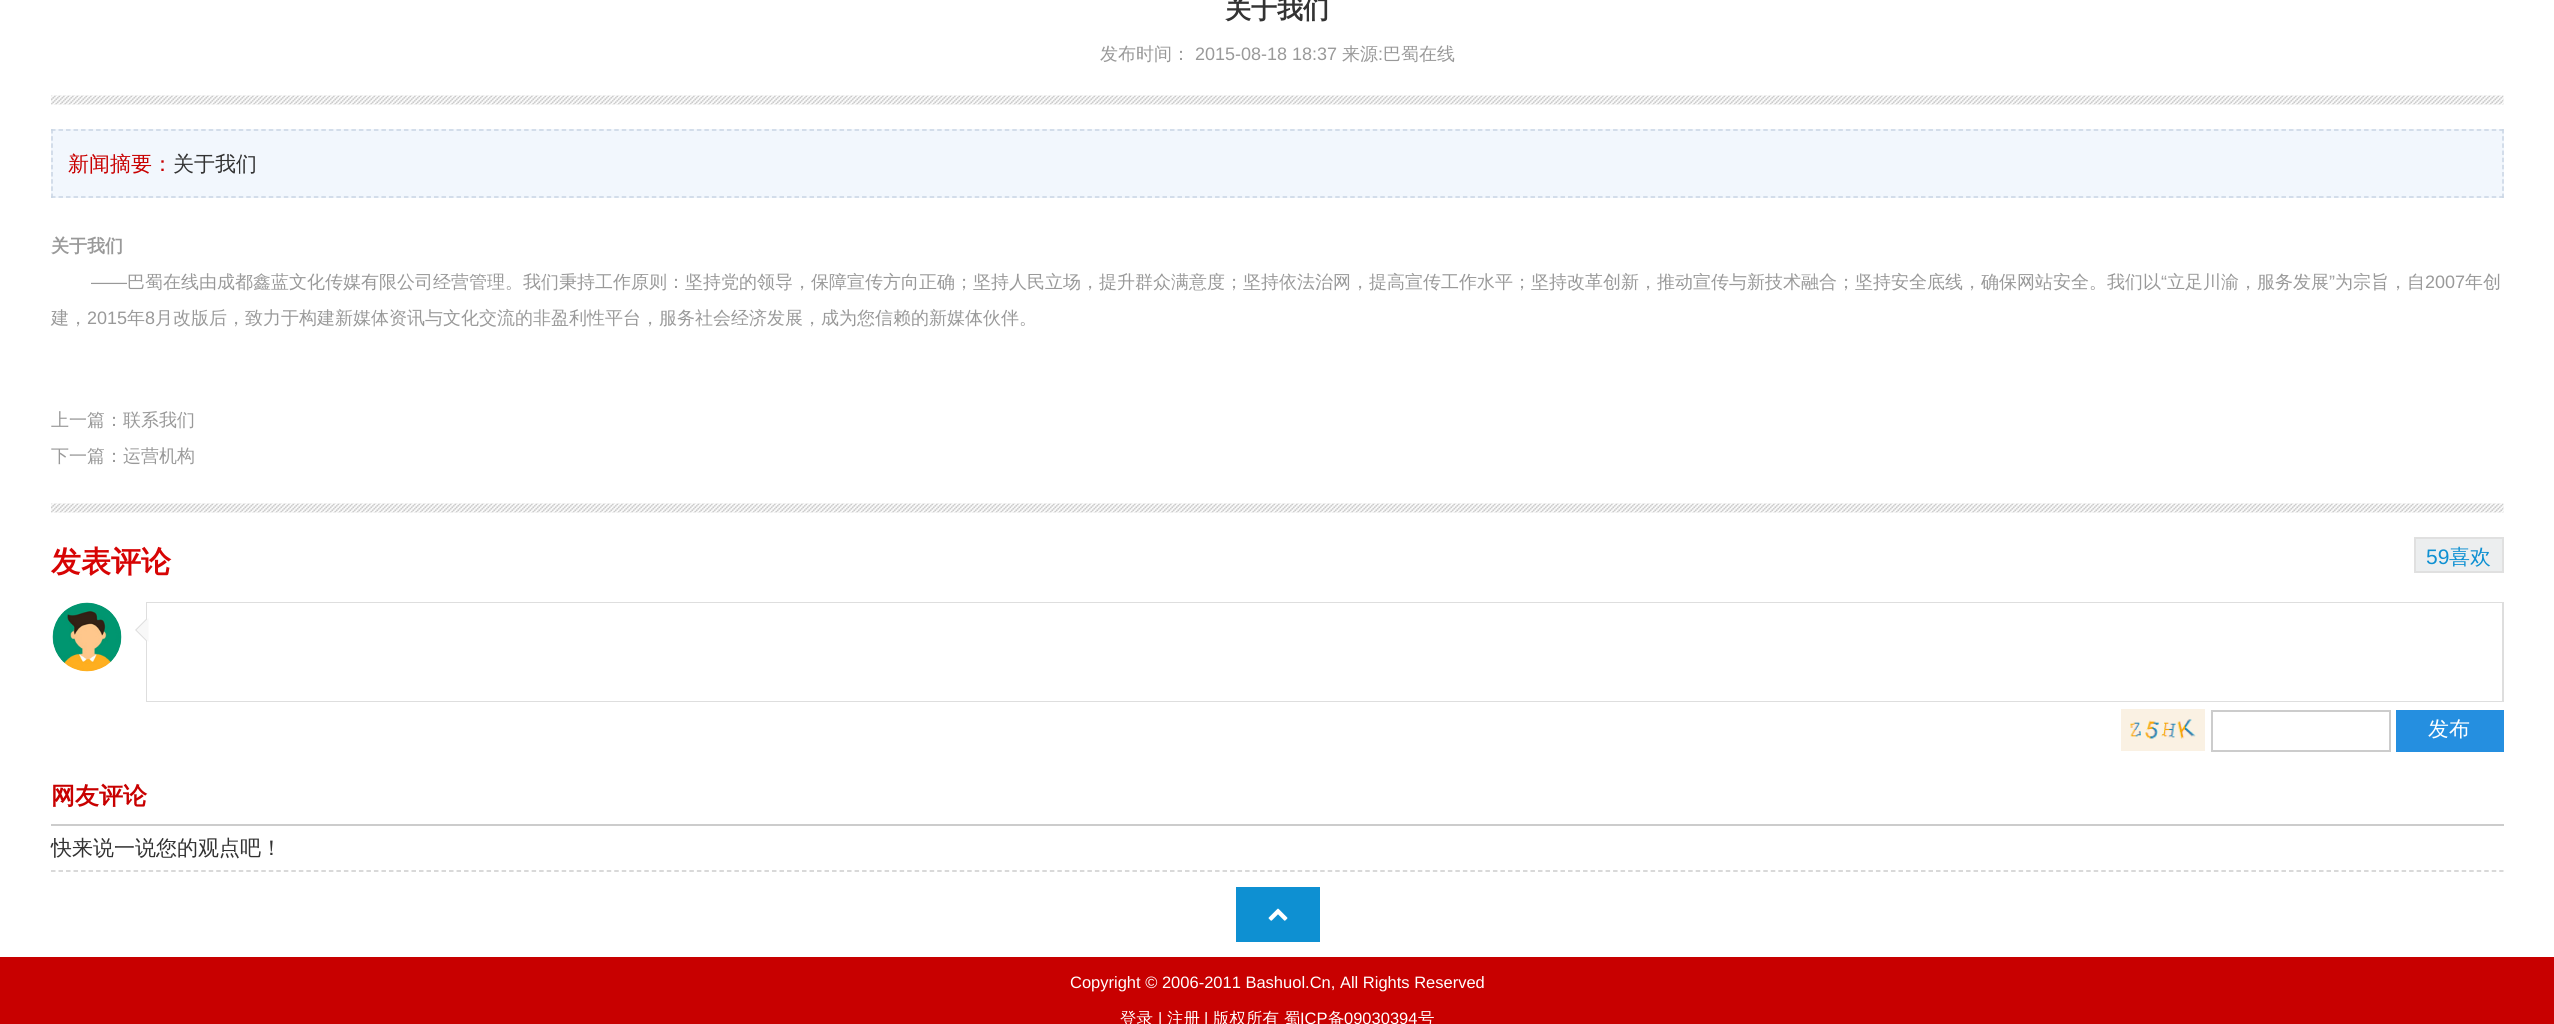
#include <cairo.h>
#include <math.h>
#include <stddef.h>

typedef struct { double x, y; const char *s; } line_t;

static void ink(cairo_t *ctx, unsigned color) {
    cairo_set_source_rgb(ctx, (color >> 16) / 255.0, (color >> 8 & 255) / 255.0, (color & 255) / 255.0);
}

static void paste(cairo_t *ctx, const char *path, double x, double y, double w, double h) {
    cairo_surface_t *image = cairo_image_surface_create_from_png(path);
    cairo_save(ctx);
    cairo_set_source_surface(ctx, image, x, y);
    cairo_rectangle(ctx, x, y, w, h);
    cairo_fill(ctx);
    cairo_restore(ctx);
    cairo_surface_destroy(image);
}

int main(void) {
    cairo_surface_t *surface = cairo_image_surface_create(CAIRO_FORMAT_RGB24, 2554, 1024);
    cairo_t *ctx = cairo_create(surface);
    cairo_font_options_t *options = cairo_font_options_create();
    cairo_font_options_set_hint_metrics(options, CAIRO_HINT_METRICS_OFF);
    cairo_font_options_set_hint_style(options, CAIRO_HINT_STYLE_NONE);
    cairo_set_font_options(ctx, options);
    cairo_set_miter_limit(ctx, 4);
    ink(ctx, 0xFFFFFF);
    cairo_paint(ctx);
    cairo_select_font_face(ctx, "WenQuanYi Zen Hei", CAIRO_FONT_SLANT_NORMAL, CAIRO_FONT_WEIGHT_BOLD);
    cairo_set_font_size(ctx, 26);
    ink(ctx, 0x333333);
    cairo_move_to(ctx, 1225, 18);
    cairo_show_text(ctx, "关于我们");
    cairo_select_font_face(ctx, "WenQuanYi Zen Hei Medium", CAIRO_FONT_SLANT_NORMAL, CAIRO_FONT_WEIGHT_NORMAL);
    cairo_set_font_size(ctx, 18);
    ink(ctx, 0x999999);
    cairo_move_to(ctx, 1100, 60);
    cairo_show_text(ctx, "发布时间：");
    cairo_select_font_face(ctx, "Liberation Sans", CAIRO_FONT_SLANT_NORMAL, CAIRO_FONT_WEIGHT_NORMAL);
    cairo_move_to(ctx, 1195, 60);
    cairo_show_text(ctx, "2015-08-18 18:37");
    cairo_select_font_face(ctx, "WenQuanYi Zen Hei Medium", CAIRO_FONT_SLANT_NORMAL, CAIRO_FONT_WEIGHT_NORMAL);
    cairo_move_to(ctx, 1342, 60);
    cairo_show_text(ctx, "来源");
    cairo_select_font_face(ctx, "Liberation Sans", CAIRO_FONT_SLANT_NORMAL, CAIRO_FONT_WEIGHT_NORMAL);
    cairo_move_to(ctx, 1378, 60);
    cairo_show_text(ctx, ":");
    cairo_select_font_face(ctx, "WenQuanYi Zen Hei Medium", CAIRO_FONT_SLANT_NORMAL, CAIRO_FONT_WEIGHT_NORMAL);
    cairo_move_to(ctx, 1383, 60);
    cairo_show_text(ctx, "巴蜀在线");
    paste(ctx, "media/1.png", 51, 95, 2453, 10);
    ink(ctx, 0xF2F7FD);
    cairo_rectangle(ctx, 51, 129, 2453, 69);
    cairo_fill(ctx);
    cairo_new_path(ctx);
    cairo_move_to(ctx, 51, 130);
    cairo_line_to(ctx, 2503.5, 130);
    ink(ctx, 0xC8D4E3);
    cairo_set_line_width(ctx, 1.5);
    cairo_set_dash(ctx, (double[]){4.5, 3.01}, 2, 0);
    cairo_stroke(ctx);
    cairo_new_path(ctx);
    cairo_move_to(ctx, 2503, 129);
    cairo_line_to(ctx, 2503, 198);
    cairo_set_dash(ctx, (double[]){4.5, 2.67}, 2, 0);
    cairo_stroke(ctx);
    cairo_new_path(ctx);
    cairo_move_to(ctx, 51, 197);
    cairo_line_to(ctx, 2503.5, 197);
    cairo_set_dash(ctx, (double[]){4.5, 3.01}, 2, 0);
    cairo_stroke(ctx);
    cairo_new_path(ctx);
    cairo_move_to(ctx, 52, 129);
    cairo_line_to(ctx, 52, 198);
    cairo_set_dash(ctx, (double[]){4.5, 2.67}, 2, 0);
    cairo_stroke(ctx);
    cairo_set_font_size(ctx, 21);
    ink(ctx, 0xC80000);
    cairo_move_to(ctx, 68, 171);
    cairo_show_text(ctx, "新闻摘要：");
    ink(ctx, 0x333333);
    cairo_move_to(ctx, 173, 171);
    cairo_show_text(ctx, "关于我们");
    cairo_select_font_face(ctx, "WenQuanYi Zen Hei", CAIRO_FONT_SLANT_NORMAL, CAIRO_FONT_WEIGHT_BOLD);
    cairo_set_font_size(ctx, 18);
    ink(ctx, 0x999999);
    cairo_move_to(ctx, 51, 252);
    cairo_show_text(ctx, "关于我们");
    cairo_select_font_face(ctx, "Liberation Sans", CAIRO_FONT_SLANT_NORMAL, CAIRO_FONT_WEIGHT_NORMAL);
    cairo_move_to(ctx, 91, 288);
    cairo_show_text(ctx, "——");
    cairo_select_font_face(ctx, "WenQuanYi Zen Hei Medium", CAIRO_FONT_SLANT_NORMAL, CAIRO_FONT_WEIGHT_NORMAL);
    cairo_move_to(ctx, 127, 288);
    cairo_show_text(ctx, "巴蜀在线由成都鑫蓝文化传媒有限公司经营管理。我们秉持工作原则：坚持党的领导，保障宣传方向正确；坚持人民立场，提升群众满意度；坚持依法治网，提高宣传工作水平；坚持改革创新，推动宣传与新技术融合；坚持安全底线，确保网站安全。我们以");
    cairo_select_font_face(ctx, "Liberation Sans", CAIRO_FONT_SLANT_NORMAL, CAIRO_FONT_WEIGHT_NORMAL);
    cairo_move_to(ctx, 2161, 288);
    cairo_show_text(ctx, "“");
    cairo_select_font_face(ctx, "WenQuanYi Zen Hei Medium", CAIRO_FONT_SLANT_NORMAL, CAIRO_FONT_WEIGHT_NORMAL);
    cairo_move_to(ctx, 2167, 288);
    cairo_show_text(ctx, "立足川渝，服务发展");
    cairo_select_font_face(ctx, "Liberation Sans", CAIRO_FONT_SLANT_NORMAL, CAIRO_FONT_WEIGHT_NORMAL);
    cairo_move_to(ctx, 2329, 288);
    cairo_show_text(ctx, "”");
    cairo_select_font_face(ctx, "WenQuanYi Zen Hei Medium", CAIRO_FONT_SLANT_NORMAL, CAIRO_FONT_WEIGHT_NORMAL);
    cairo_move_to(ctx, 2335, 288);
    cairo_show_text(ctx, "为宗旨，自");
    cairo_select_font_face(ctx, "Liberation Sans", CAIRO_FONT_SLANT_NORMAL, CAIRO_FONT_WEIGHT_NORMAL);
    cairo_move_to(ctx, 2425, 288);
    cairo_show_text(ctx, "2007");
    cairo_select_font_face(ctx, "WenQuanYi Zen Hei Medium", CAIRO_FONT_SLANT_NORMAL, CAIRO_FONT_WEIGHT_NORMAL);
    cairo_move_to(ctx, 2465, 288);
    cairo_show_text(ctx, "年创");
    cairo_move_to(ctx, 51, 324);
    cairo_show_text(ctx, "建，");
    cairo_select_font_face(ctx, "Liberation Sans", CAIRO_FONT_SLANT_NORMAL, CAIRO_FONT_WEIGHT_NORMAL);
    cairo_move_to(ctx, 87, 324);
    cairo_show_text(ctx, "2015");
    cairo_select_font_face(ctx, "WenQuanYi Zen Hei Medium", CAIRO_FONT_SLANT_NORMAL, CAIRO_FONT_WEIGHT_NORMAL);
    cairo_move_to(ctx, 127, 324);
    cairo_show_text(ctx, "年");
    cairo_select_font_face(ctx, "Liberation Sans", CAIRO_FONT_SLANT_NORMAL, CAIRO_FONT_WEIGHT_NORMAL);
    cairo_move_to(ctx, 145, 324);
    cairo_show_text(ctx, "8");
    cairo_select_font_face(ctx, "WenQuanYi Zen Hei Medium", CAIRO_FONT_SLANT_NORMAL, CAIRO_FONT_WEIGHT_NORMAL);
    {
        static const line_t items[] = {
            {155, 324, "月改版后，致力于构建新媒体资讯与文化交流的非盈利性平台，服务社会经济发展，成为您信赖的新媒体伙伴。"},
            {51, 426, "上一篇：联系我们"},
            {51, 462, "下一篇：运营机构"},
        };
        for (size_t i = 0; i < sizeof items / sizeof *items; i++) {
            cairo_move_to(ctx, items[i].x, items[i].y);
            cairo_show_text(ctx, items[i].s);
        }
    }
    paste(ctx, "media/1.png", 51, 503, 2453, 10);
    cairo_select_font_face(ctx, "WenQuanYi Zen Hei", CAIRO_FONT_SLANT_NORMAL, CAIRO_FONT_WEIGHT_BOLD);
    cairo_set_font_size(ctx, 30);
    ink(ctx, 0xD70404);
    cairo_move_to(ctx, 51, 572);
    cairo_show_text(ctx, "发表评论");
    ink(ctx, 0xECEEEF);
    cairo_rectangle(ctx, 2415, 538, 88, 34);
    cairo_fill_preserve(ctx);
    ink(ctx, 0xE0E0E0);
    cairo_set_line_width(ctx, 2);
    cairo_set_dash(ctx, NULL, 0, 0);
    cairo_stroke(ctx);
    cairo_select_font_face(ctx, "Liberation Sans", CAIRO_FONT_SLANT_NORMAL, CAIRO_FONT_WEIGHT_NORMAL);
    cairo_set_font_size(ctx, 21);
    ink(ctx, 0x0E90D2);
    cairo_move_to(ctx, 2426, 564);
    cairo_show_text(ctx, "59");
    cairo_select_font_face(ctx, "WenQuanYi Zen Hei Medium", CAIRO_FONT_SLANT_NORMAL, CAIRO_FONT_WEIGHT_NORMAL);
    cairo_move_to(ctx, 2449, 564);
    cairo_show_text(ctx, "喜欢");
    paste(ctx, "media/2.png", 52, 602, 70, 70);
    cairo_rectangle(ctx, 147, 603, 2356, 98);
    ink(ctx, 0xDEDEDE);
    cairo_stroke(ctx);
    cairo_new_path(ctx);
    cairo_move_to(ctx, 147, 618);
    cairo_line_to(ctx, 147, 642);
    cairo_line_to(ctx, 135, 630);
    cairo_close_path(ctx);
    cairo_fill(ctx);
    ink(ctx, 0xFFFFFF);
    cairo_rectangle(ctx, 147, 603, 2355, 98);
    cairo_fill(ctx);
    ink(ctx, 0xF8F8F8);
    cairo_new_path(ctx);
    cairo_move_to(ctx, 148.5, 618);
    cairo_line_to(ctx, 148.5, 642);
    cairo_line_to(ctx, 136.5, 630);
    cairo_close_path(ctx);
    cairo_fill(ctx);
    paste(ctx, "media/3.png", 2121, 709, 84, 42);
    cairo_rectangle(ctx, 2212, 711, 178, 40);
    ink(ctx, 0xCCCCCC);
    cairo_stroke(ctx);
    ink(ctx, 0x258FE0);
    cairo_rectangle(ctx, 2396, 710, 108, 42);
    cairo_fill(ctx);
    ink(ctx, 0xFFFFFF);
    cairo_move_to(ctx, 2428, 736);
    cairo_show_text(ctx, "发布");
    ink(ctx, 0xCCCCCC);
    cairo_rectangle(ctx, 51, 824, 2453, 2);
    cairo_fill(ctx);
    cairo_select_font_face(ctx, "WenQuanYi Zen Hei", CAIRO_FONT_SLANT_NORMAL, CAIRO_FONT_WEIGHT_BOLD);
    cairo_set_font_size(ctx, 24);
    ink(ctx, 0xC80000);
    cairo_move_to(ctx, 51, 804);
    cairo_show_text(ctx, "网友评论");
    cairo_new_path(ctx);
    cairo_move_to(ctx, 51, 871);
    cairo_line_to(ctx, 2503.5, 871);
    ink(ctx, 0xCCCCCC);
    cairo_set_line_width(ctx, 1.5);
    cairo_set_dash(ctx, (double[]){4.5, 3.01}, 2, 0);
    cairo_stroke(ctx);
    cairo_select_font_face(ctx, "WenQuanYi Zen Hei Medium", CAIRO_FONT_SLANT_NORMAL, CAIRO_FONT_WEIGHT_NORMAL);
    cairo_set_font_size(ctx, 21);
    ink(ctx, 0x333333);
    cairo_move_to(ctx, 51, 855);
    cairo_show_text(ctx, "快来说一说您的观点吧！");
    ink(ctx, 0x0E90D2);
    cairo_rectangle(ctx, 1236, 887, 84, 55);
    cairo_fill(ctx);
    paste(ctx, "media/4.png", 1268, 908, 20, 13);
    ink(ctx, 0xC80000);
    cairo_rectangle(ctx, 0, 957, 2554, 67);
    cairo_fill(ctx);
    cairo_select_font_face(ctx, "Liberation Sans", CAIRO_FONT_SLANT_NORMAL, CAIRO_FONT_WEIGHT_NORMAL);
    cairo_set_font_size(ctx, 16.5);
    ink(ctx, 0xFFFFFF);
    cairo_move_to(ctx, 1070, 988);
    cairo_show_text(ctx, "Copyright © 2006-2011 Bashuol.Cn, All Rights Reserved");
    cairo_select_font_face(ctx, "WenQuanYi Zen Hei Medium", CAIRO_FONT_SLANT_NORMAL, CAIRO_FONT_WEIGHT_NORMAL);
    cairo_move_to(ctx, 1120, 1024);
    cairo_show_text(ctx, "登录");
    cairo_select_font_face(ctx, "Liberation Sans", CAIRO_FONT_SLANT_NORMAL, CAIRO_FONT_WEIGHT_NORMAL);
    cairo_move_to(ctx, 1158, 1024);
    cairo_show_text(ctx, "|");
    cairo_select_font_face(ctx, "WenQuanYi Zen Hei Medium", CAIRO_FONT_SLANT_NORMAL, CAIRO_FONT_WEIGHT_NORMAL);
    cairo_move_to(ctx, 1167, 1024);
    cairo_show_text(ctx, "注册");
    cairo_select_font_face(ctx, "Liberation Sans", CAIRO_FONT_SLANT_NORMAL, CAIRO_FONT_WEIGHT_NORMAL);
    cairo_move_to(ctx, 1204, 1024);
    cairo_show_text(ctx, "|");
    cairo_select_font_face(ctx, "WenQuanYi Zen Hei Medium", CAIRO_FONT_SLANT_NORMAL, CAIRO_FONT_WEIGHT_NORMAL);
    cairo_move_to(ctx, 1213, 1024);
    cairo_show_text(ctx, "版权所有 蜀");
    cairo_select_font_face(ctx, "Liberation Sans", CAIRO_FONT_SLANT_NORMAL, CAIRO_FONT_WEIGHT_NORMAL);
    cairo_move_to(ctx, 1300, 1024);
    cairo_show_text(ctx, "ICP");
    cairo_select_font_face(ctx, "WenQuanYi Zen Hei Medium", CAIRO_FONT_SLANT_NORMAL, CAIRO_FONT_WEIGHT_NORMAL);
    cairo_move_to(ctx, 1328, 1024);
    cairo_show_text(ctx, "备");
    cairo_select_font_face(ctx, "Liberation Sans", CAIRO_FONT_SLANT_NORMAL, CAIRO_FONT_WEIGHT_NORMAL);
    cairo_move_to(ctx, 1344, 1024);
    cairo_show_text(ctx, "09030394");
    cairo_select_font_face(ctx, "WenQuanYi Zen Hei Medium", CAIRO_FONT_SLANT_NORMAL, CAIRO_FONT_WEIGHT_NORMAL);
    cairo_move_to(ctx, 1418, 1024);
    cairo_show_text(ctx, "号");
    cairo_surface_write_to_png(surface, "image.png");
    cairo_font_options_destroy(options);
    cairo_destroy(ctx);
    cairo_surface_destroy(surface);
    return 0;
}
